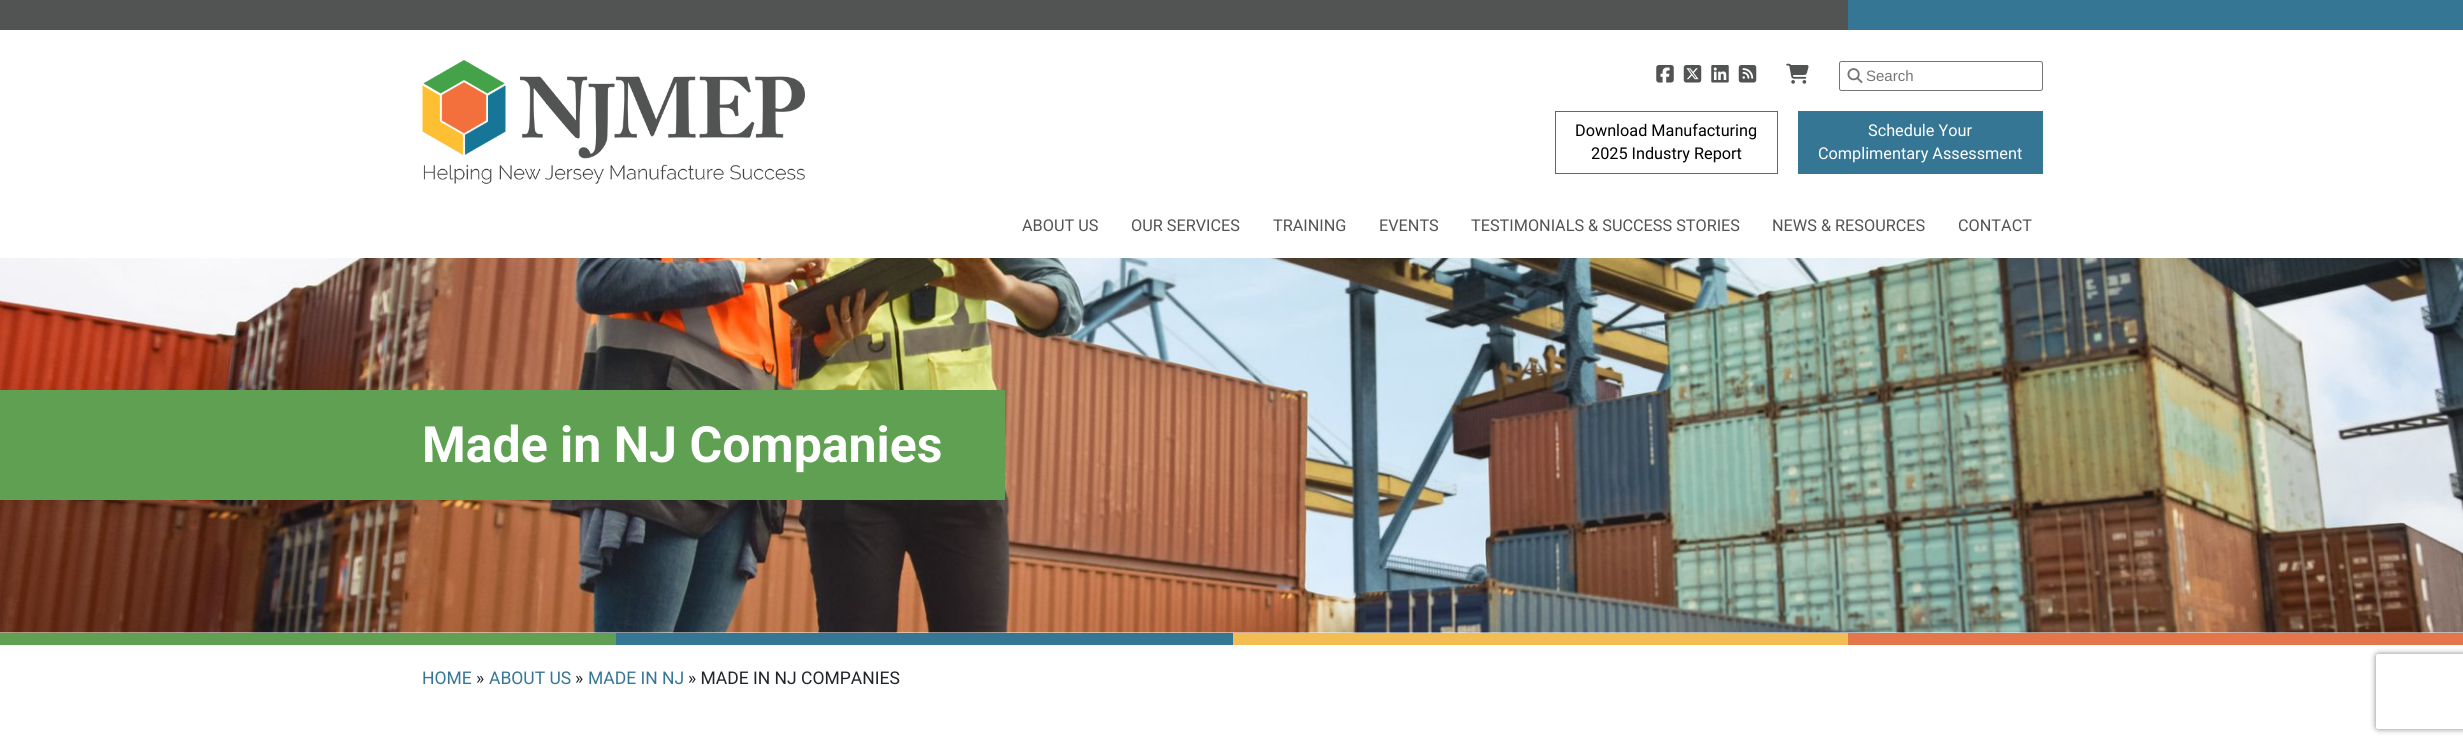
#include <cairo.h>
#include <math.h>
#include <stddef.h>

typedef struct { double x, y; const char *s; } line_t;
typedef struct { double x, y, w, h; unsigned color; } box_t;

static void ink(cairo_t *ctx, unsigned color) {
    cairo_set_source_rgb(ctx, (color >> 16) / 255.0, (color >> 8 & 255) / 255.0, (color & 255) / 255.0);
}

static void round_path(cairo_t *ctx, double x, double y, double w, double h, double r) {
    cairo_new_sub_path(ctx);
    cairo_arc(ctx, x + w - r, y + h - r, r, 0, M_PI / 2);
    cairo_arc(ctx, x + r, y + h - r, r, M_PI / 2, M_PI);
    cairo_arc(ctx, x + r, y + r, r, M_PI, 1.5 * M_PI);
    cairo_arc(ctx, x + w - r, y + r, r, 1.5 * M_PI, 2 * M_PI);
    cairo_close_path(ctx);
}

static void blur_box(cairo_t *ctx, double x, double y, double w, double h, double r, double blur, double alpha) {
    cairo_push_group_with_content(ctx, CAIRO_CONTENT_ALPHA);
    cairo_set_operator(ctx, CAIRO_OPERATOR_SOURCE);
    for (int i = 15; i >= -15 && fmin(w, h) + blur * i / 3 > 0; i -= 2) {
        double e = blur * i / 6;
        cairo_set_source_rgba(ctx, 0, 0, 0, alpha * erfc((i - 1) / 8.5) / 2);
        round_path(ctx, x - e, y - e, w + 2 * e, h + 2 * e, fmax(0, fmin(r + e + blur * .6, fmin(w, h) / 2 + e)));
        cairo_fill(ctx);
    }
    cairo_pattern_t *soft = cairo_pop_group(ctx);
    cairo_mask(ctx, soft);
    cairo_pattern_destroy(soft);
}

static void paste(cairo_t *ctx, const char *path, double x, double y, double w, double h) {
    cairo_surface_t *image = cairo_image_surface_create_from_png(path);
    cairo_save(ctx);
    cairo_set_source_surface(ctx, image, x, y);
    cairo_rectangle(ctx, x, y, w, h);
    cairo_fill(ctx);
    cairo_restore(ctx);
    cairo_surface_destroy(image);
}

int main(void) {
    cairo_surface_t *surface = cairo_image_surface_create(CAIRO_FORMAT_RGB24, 2463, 746);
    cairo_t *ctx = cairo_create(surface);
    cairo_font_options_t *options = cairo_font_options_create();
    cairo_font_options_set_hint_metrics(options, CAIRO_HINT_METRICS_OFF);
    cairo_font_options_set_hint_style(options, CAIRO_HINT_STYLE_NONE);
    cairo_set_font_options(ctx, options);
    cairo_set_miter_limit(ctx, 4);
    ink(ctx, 0xFFFFFF);
    cairo_paint(ctx);
    ink(ctx, 0x525353);
    cairo_rectangle(ctx, 0, 0, 1848, 30);
    cairo_fill(ctx);
    ink(ctx, 0x367695);
    cairo_rectangle(ctx, 1848, 0, 615, 30);
    cairo_fill(ctx);
    paste(ctx, "media/1.png", 422, 60, 383, 124);
    paste(ctx, "media/2.png", 1656, 65, 18, 18);
    paste(ctx, "media/3.png", 1683, 65, 19, 18);
    paste(ctx, "media/4.png", 1711, 65, 18, 18);
    paste(ctx, "media/5.png", 1738, 65, 19, 18);
    paste(ctx, "media/6.png", 1786, 63, 23, 21);
    round_path(ctx, 1839.5, 61.5, 203, 29, 2);
    ink(ctx, 0x767676);
    cairo_set_line_width(ctx, 1);
    cairo_stroke(ctx);
    paste(ctx, "media/7.png", 1847, 68, 16, 16);
    cairo_select_font_face(ctx, "Liberation Sans", CAIRO_FONT_SLANT_NORMAL, CAIRO_FONT_WEIGHT_NORMAL);
    cairo_set_font_size(ctx, 15);
    ink(ctx, 0x757575);
    cairo_move_to(ctx, 1866, 81);
    cairo_show_text(ctx, "Search");
    cairo_rectangle(ctx, 1555.5, 111.5, 222, 62);
    ink(ctx, 0x367695);
    cairo_stroke(ctx);
    cairo_select_font_face(ctx, "Roboto", CAIRO_FONT_SLANT_NORMAL, CAIRO_FONT_WEIGHT_NORMAL);
    cairo_set_font_size(ctx, 16.25);
    ink(ctx, 0x000000);
    cairo_move_to(ctx, 1575, 136);
    cairo_show_text(ctx, "Download Manufacturing");
    cairo_move_to(ctx, 1591, 159);
    cairo_show_text(ctx, "2025 Industry Report");
    ink(ctx, 0x367695);
    cairo_rectangle(ctx, 1798, 111, 245, 63);
    cairo_fill(ctx);
    ink(ctx, 0xFFFFFF);
    cairo_move_to(ctx, 1868, 136);
    cairo_show_text(ctx, "Schedule Your");
    cairo_move_to(ctx, 1818, 159);
    cairo_show_text(ctx, "Complimentary Assessment");
    ink(ctx, 0x525353);
    {
        static const line_t items[] = {
            {1022, 231, "ABOUT US"},
            {1131, 231, "OUR SERVICES"},
            {1273, 231, "TRAINING"},
            {1379, 231, "EVENTS"},
            {1471, 231, "TESTIMONIALS & SUCCESS STORIES"},
            {1772, 231, "NEWS & RESOURCES"},
            {1958, 231, "CONTACT"},
        };
        for (size_t i = 0; i < sizeof items / sizeof *items; i++) {
            cairo_move_to(ctx, items[i].x, items[i].y);
            cairo_show_text(ctx, items[i].s);
        }
    }
    paste(ctx, "media/8.png", 0, 258, 2463, 375);
    ink(ctx, 0x60A053);
    cairo_rectangle(ctx, 0, 390, 1005, 110);
    cairo_fill(ctx);
    cairo_select_font_face(ctx, "Roboto", CAIRO_FONT_SLANT_NORMAL, CAIRO_FONT_WEIGHT_BOLD);
    cairo_set_font_size(ctx, 50);
    ink(ctx, 0xFFFFFF);
    cairo_move_to(ctx, 422, 462);
    cairo_show_text(ctx, "Made in NJ Companies");
    {
        static const box_t items[] = {
            {0, 633, 616, 12, 0x60A053},
            {616, 633, 617, 12, 0x367695},
            {1233, 633, 615, 12, 0xF2BE53},
            {1848, 633, 615, 12, 0xE3764A},
        };
        for (size_t i = 0; i < sizeof items / sizeof *items; i++) {
            ink(ctx, items[i].color);
            cairo_rectangle(ctx, items[i].x, items[i].y, items[i].w, items[i].h);
            cairo_fill(ctx);
        }
    }
    cairo_select_font_face(ctx, "Roboto", CAIRO_FONT_SLANT_NORMAL, CAIRO_FONT_WEIGHT_NORMAL);
    cairo_set_font_size(ctx, 17.5);
    ink(ctx, 0x367695);
    cairo_move_to(ctx, 422, 684);
    cairo_show_text(ctx, "HOME");
    ink(ctx, 0x212529);
    cairo_move_to(ctx, 476, 684);
    cairo_show_text(ctx, "»");
    ink(ctx, 0x367695);
    cairo_move_to(ctx, 489, 684);
    cairo_show_text(ctx, "ABOUT US");
    ink(ctx, 0x212529);
    cairo_move_to(ctx, 575, 684);
    cairo_show_text(ctx, "»");
    ink(ctx, 0x367695);
    cairo_move_to(ctx, 588, 684);
    cairo_show_text(ctx, "MADE IN NJ");
    ink(ctx, 0x212529);
    cairo_move_to(ctx, 688, 684);
    cairo_show_text(ctx, "» MADE IN NJ COMPANIES");
    cairo_save(ctx);
    cairo_set_fill_rule(ctx, CAIRO_FILL_RULE_EVEN_ODD);
    cairo_new_path(ctx);
    cairo_move_to(ctx, 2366, 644);
    cairo_line_to(ctx, 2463, 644);
    cairo_line_to(ctx, 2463, 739);
    cairo_line_to(ctx, 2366, 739);
    cairo_close_path(ctx);
    cairo_move_to(ctx, 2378.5, 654);
    cairo_line_to(ctx, 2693.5, 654);
    cairo_curve_to(ctx, 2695, 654, 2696, 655, 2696, 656.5);
    cairo_line_to(ctx, 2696, 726.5);
    cairo_curve_to(ctx, 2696, 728, 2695, 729, 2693.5, 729);
    cairo_line_to(ctx, 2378.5, 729);
    cairo_curve_to(ctx, 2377, 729, 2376, 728, 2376, 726.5);
    cairo_line_to(ctx, 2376, 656.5);
    cairo_curve_to(ctx, 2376, 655, 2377, 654, 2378.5, 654);
    cairo_close_path(ctx);
    cairo_clip(ctx);
    ink(ctx, 0x808080);
    blur_box(ctx, 2376, 654, 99, 75, 2.5, 3, 1);
    cairo_restore(ctx);
    cairo_surface_write_to_png(surface, "image.png");
    cairo_font_options_destroy(options);
    cairo_destroy(ctx);
    cairo_surface_destroy(surface);
    return 0;
}
